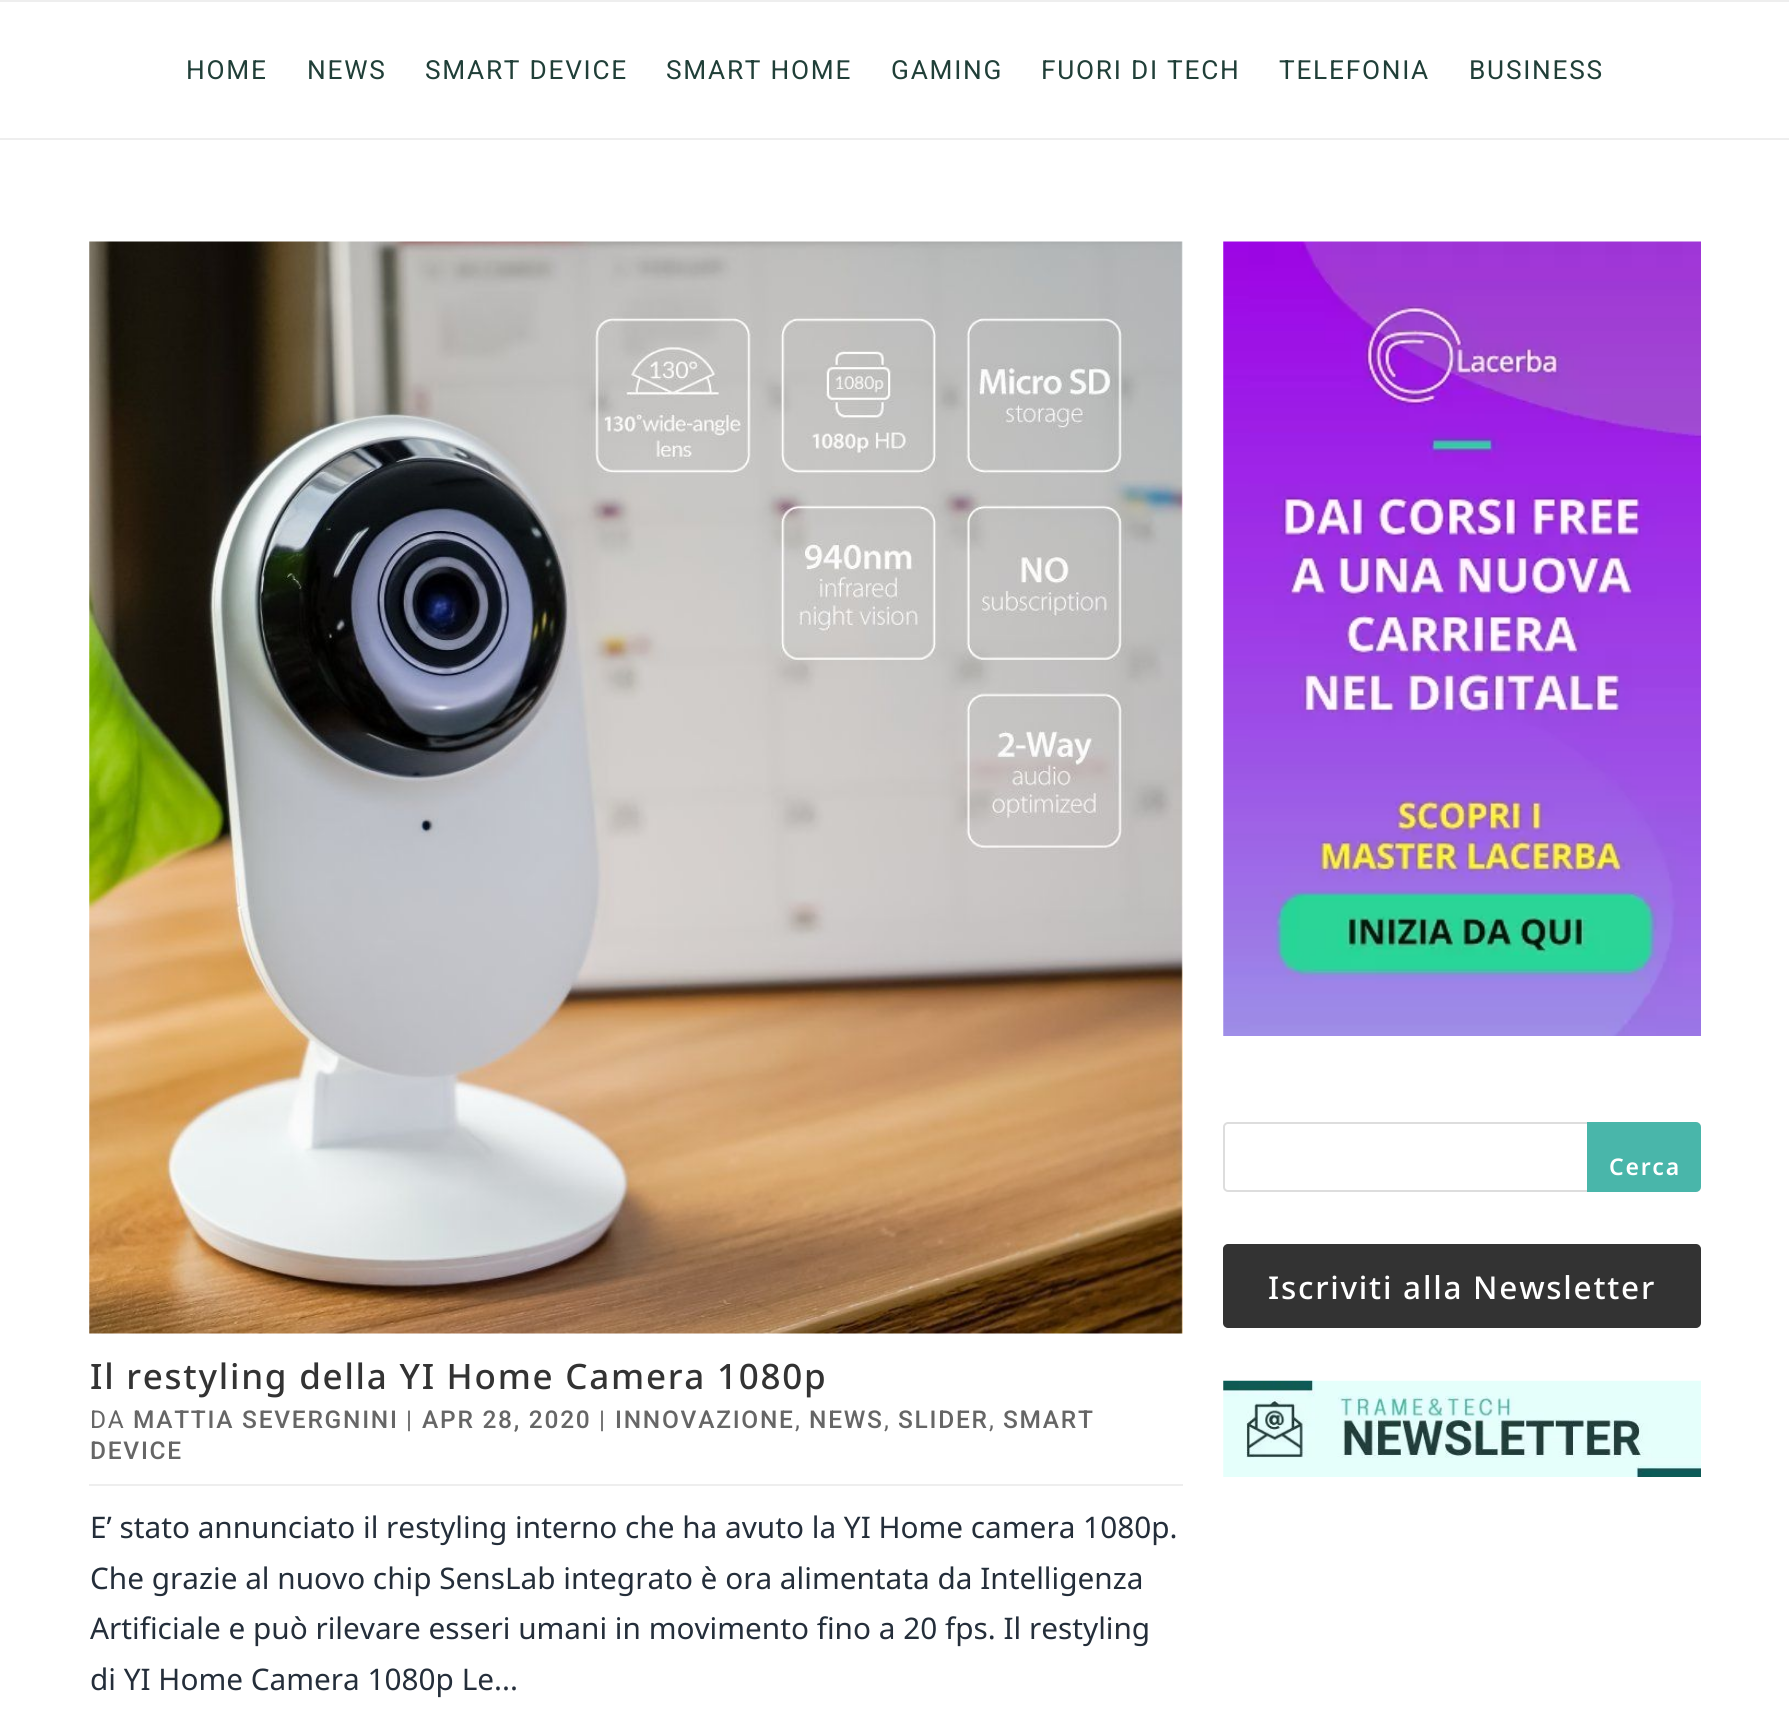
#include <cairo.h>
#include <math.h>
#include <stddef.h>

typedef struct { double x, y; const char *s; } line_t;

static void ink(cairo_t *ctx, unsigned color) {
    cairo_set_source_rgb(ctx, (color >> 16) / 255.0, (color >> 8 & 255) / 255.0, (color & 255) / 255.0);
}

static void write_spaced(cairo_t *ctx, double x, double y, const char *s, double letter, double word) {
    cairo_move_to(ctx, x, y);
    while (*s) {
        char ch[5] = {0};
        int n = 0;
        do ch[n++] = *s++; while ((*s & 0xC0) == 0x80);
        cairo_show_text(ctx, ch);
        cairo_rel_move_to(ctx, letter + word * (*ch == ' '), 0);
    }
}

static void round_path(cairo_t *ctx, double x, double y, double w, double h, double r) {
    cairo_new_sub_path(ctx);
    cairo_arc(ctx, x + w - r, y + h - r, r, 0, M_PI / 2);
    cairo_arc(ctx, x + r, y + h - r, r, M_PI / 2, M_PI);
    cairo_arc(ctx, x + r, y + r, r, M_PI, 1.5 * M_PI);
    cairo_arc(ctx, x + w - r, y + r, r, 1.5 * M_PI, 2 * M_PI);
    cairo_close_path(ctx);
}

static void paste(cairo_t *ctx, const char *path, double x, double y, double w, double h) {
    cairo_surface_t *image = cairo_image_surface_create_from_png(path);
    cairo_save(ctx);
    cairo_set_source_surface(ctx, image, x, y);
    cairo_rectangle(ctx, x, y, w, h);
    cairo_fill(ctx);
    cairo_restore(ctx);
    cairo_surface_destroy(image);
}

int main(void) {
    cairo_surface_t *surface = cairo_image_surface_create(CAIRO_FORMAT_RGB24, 1789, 1728);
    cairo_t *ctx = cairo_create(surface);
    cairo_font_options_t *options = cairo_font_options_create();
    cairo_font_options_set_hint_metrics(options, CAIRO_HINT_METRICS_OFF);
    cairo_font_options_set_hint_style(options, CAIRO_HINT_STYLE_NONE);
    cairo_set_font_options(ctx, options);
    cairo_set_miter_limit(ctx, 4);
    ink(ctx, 0xFFFFFF);
    cairo_paint(ctx);
    ink(ctx, 0xEEEEEE);
    cairo_rectangle(ctx, 0, 0, 1789, 2);
    cairo_fill(ctx);
    cairo_rectangle(ctx, 0, 138, 1789, 2);
    cairo_fill(ctx);
    cairo_select_font_face(ctx, "Roboto", CAIRO_FONT_SLANT_NORMAL, CAIRO_FONT_WEIGHT_NORMAL);
    cairo_set_font_size(ctx, 26.25);
    ink(ctx, 0x203F38);
    {
        static const line_t items[] = {
            {186, 79, "HOME"},
            {307, 79, "NEWS"},
            {425, 79, "SMART DEVICE"},
            {666, 79, "SMART HOME"},
            {891, 79, "GAMING"},
            {1041, 79, "FUORI DI TECH"},
            {1279, 79, "TELEFONIA"},
            {1469, 79, "BUSINESS"},
        };
        for (size_t i = 0; i < sizeof items / sizeof *items; i++) {
            write_spaced(ctx, items[i].x, items[i].y, items[i].s, 1.75, 0);
        }
    }
    paste(ctx, "media/1.png", 1223, 241, 478, 795);
    round_path(ctx, 1224, 1123, 476, 68, 4);
    ink(ctx, 0xDDDDDD);
    cairo_stroke(ctx);
    ink(ctx, 0x49B6AA);
    cairo_new_path(ctx);
    cairo_move_to(ctx, 1589, 1124);
    cairo_line_to(ctx, 1696, 1124);
    cairo_curve_to(ctx, 1697.5, 1124, 1699, 1125.5, 1699, 1127);
    cairo_line_to(ctx, 1699, 1187);
    cairo_curve_to(ctx, 1699, 1188.5, 1697.5, 1190, 1696, 1190);
    cairo_line_to(ctx, 1589, 1190);
    cairo_close_path(ctx);
    cairo_fill_preserve(ctx);
    cairo_set_line_width(ctx, 4);
    cairo_stroke(ctx);
    cairo_select_font_face(ctx, "Noto Sans SemiBold", CAIRO_FONT_SLANT_NORMAL, CAIRO_FONT_WEIGHT_NORMAL);
    cairo_set_font_size(ctx, 23);
    ink(ctx, 0xFFFFFF);
    write_spaced(ctx, 1609, 1175, "Cerca", 1.75, 0);
    ink(ctx, 0x333333);
    round_path(ctx, 1224, 1245, 476, 82, 4);
    cairo_fill_preserve(ctx);
    cairo_set_line_width(ctx, 2);
    cairo_stroke(ctx);
    cairo_select_font_face(ctx, "Noto Sans Medium", CAIRO_FONT_SLANT_NORMAL, CAIRO_FONT_WEIGHT_NORMAL);
    cairo_set_font_size(ctx, 31.5);
    ink(ctx, 0xFFFFFF);
    write_spaced(ctx, 1268, 1299, "Iscriviti alla Newsletter", 1.75, 0);
    paste(ctx, "media/2.png", 1223, 1380, 478, 97);
    paste(ctx, "media/3.png", 89, 241, 1094, 1093);
    cairo_set_font_size(ctx, 35);
    ink(ctx, 0x333333);
    write_spaced(ctx, 90, 1389, "Il restyling della YI Home Camera 1080p", 1.75, 0);
    ink(ctx, 0xEEEEEE);
    cairo_rectangle(ctx, 89, 1484, 1094, 2);
    cairo_fill(ctx);
    cairo_select_font_face(ctx, "Roboto", CAIRO_FONT_SLANT_NORMAL, CAIRO_FONT_WEIGHT_NORMAL);
    cairo_set_font_size(ctx, 24.5);
    ink(ctx, 0x666666);
    write_spaced(ctx, 90, 1428, "DA", 1.75, 0);
    cairo_select_font_face(ctx, "Roboto Medium", CAIRO_FONT_SLANT_NORMAL, CAIRO_FONT_WEIGHT_NORMAL);
    write_spaced(ctx, 133, 1428, "MATTIA SEVERGNINI", 1.75, 0);
    cairo_select_font_face(ctx, "Roboto", CAIRO_FONT_SLANT_NORMAL, CAIRO_FONT_WEIGHT_NORMAL);
    write_spaced(ctx, 406, 1428, "|", 1.75, 0);
    cairo_select_font_face(ctx, "Roboto Medium", CAIRO_FONT_SLANT_NORMAL, CAIRO_FONT_WEIGHT_NORMAL);
    write_spaced(ctx, 422, 1428, "APR 28, 2020", 1.75, 0);
    cairo_select_font_face(ctx, "Roboto", CAIRO_FONT_SLANT_NORMAL, CAIRO_FONT_WEIGHT_NORMAL);
    write_spaced(ctx, 599, 1428, "|", 1.75, 0);
    cairo_select_font_face(ctx, "Roboto Medium", CAIRO_FONT_SLANT_NORMAL, CAIRO_FONT_WEIGHT_NORMAL);
    write_spaced(ctx, 615, 1428, "INNOVAZIONE", 1.75, 0);
    cairo_select_font_face(ctx, "Roboto", CAIRO_FONT_SLANT_NORMAL, CAIRO_FONT_WEIGHT_NORMAL);
    write_spaced(ctx, 795, 1428, ",", 1.75, 0);
    cairo_select_font_face(ctx, "Roboto Medium", CAIRO_FONT_SLANT_NORMAL, CAIRO_FONT_WEIGHT_NORMAL);
    write_spaced(ctx, 809, 1428, "NEWS", 1.75, 0);
    cairo_select_font_face(ctx, "Roboto", CAIRO_FONT_SLANT_NORMAL, CAIRO_FONT_WEIGHT_NORMAL);
    write_spaced(ctx, 884, 1428, ",", 1.75, 0);
    cairo_select_font_face(ctx, "Roboto Medium", CAIRO_FONT_SLANT_NORMAL, CAIRO_FONT_WEIGHT_NORMAL);
    write_spaced(ctx, 898, 1428, "SLIDER", 1.75, 0);
    cairo_select_font_face(ctx, "Roboto", CAIRO_FONT_SLANT_NORMAL, CAIRO_FONT_WEIGHT_NORMAL);
    write_spaced(ctx, 989, 1428, ",", 1.75, 0);
    cairo_select_font_face(ctx, "Roboto Medium", CAIRO_FONT_SLANT_NORMAL, CAIRO_FONT_WEIGHT_NORMAL);
    write_spaced(ctx, 1003, 1428, "SMART", 1.75, 0);
    write_spaced(ctx, 90, 1459, "DEVICE", 1.75, 0);
    cairo_select_font_face(ctx, "Noto Sans", CAIRO_FONT_SLANT_NORMAL, CAIRO_FONT_WEIGHT_NORMAL);
    cairo_set_font_size(ctx, 29.75);
    ink(ctx, 0x242E3A);
    {
        static const line_t items[] = {
            {90, 1538, "E’ stato annunciato il restyling interno che ha avuto la YI Home camera 1080p."},
            {90, 1589, "Che grazie al nuovo chip SensLab integrato è ora alimentata da Intelligenza"},
            {90, 1639, "Artificiale e può rilevare esseri umani in movimento fino a 20 fps. Il restyling"},
            {90, 1690, "di YI Home Camera 1080p Le..."},
        };
        for (size_t i = 0; i < sizeof items / sizeof *items; i++) {
            cairo_move_to(ctx, items[i].x, items[i].y);
            cairo_show_text(ctx, items[i].s);
        }
    }
    cairo_surface_write_to_png(surface, "image.png");
    cairo_font_options_destroy(options);
    cairo_destroy(ctx);
    cairo_surface_destroy(surface);
    return 0;
}
